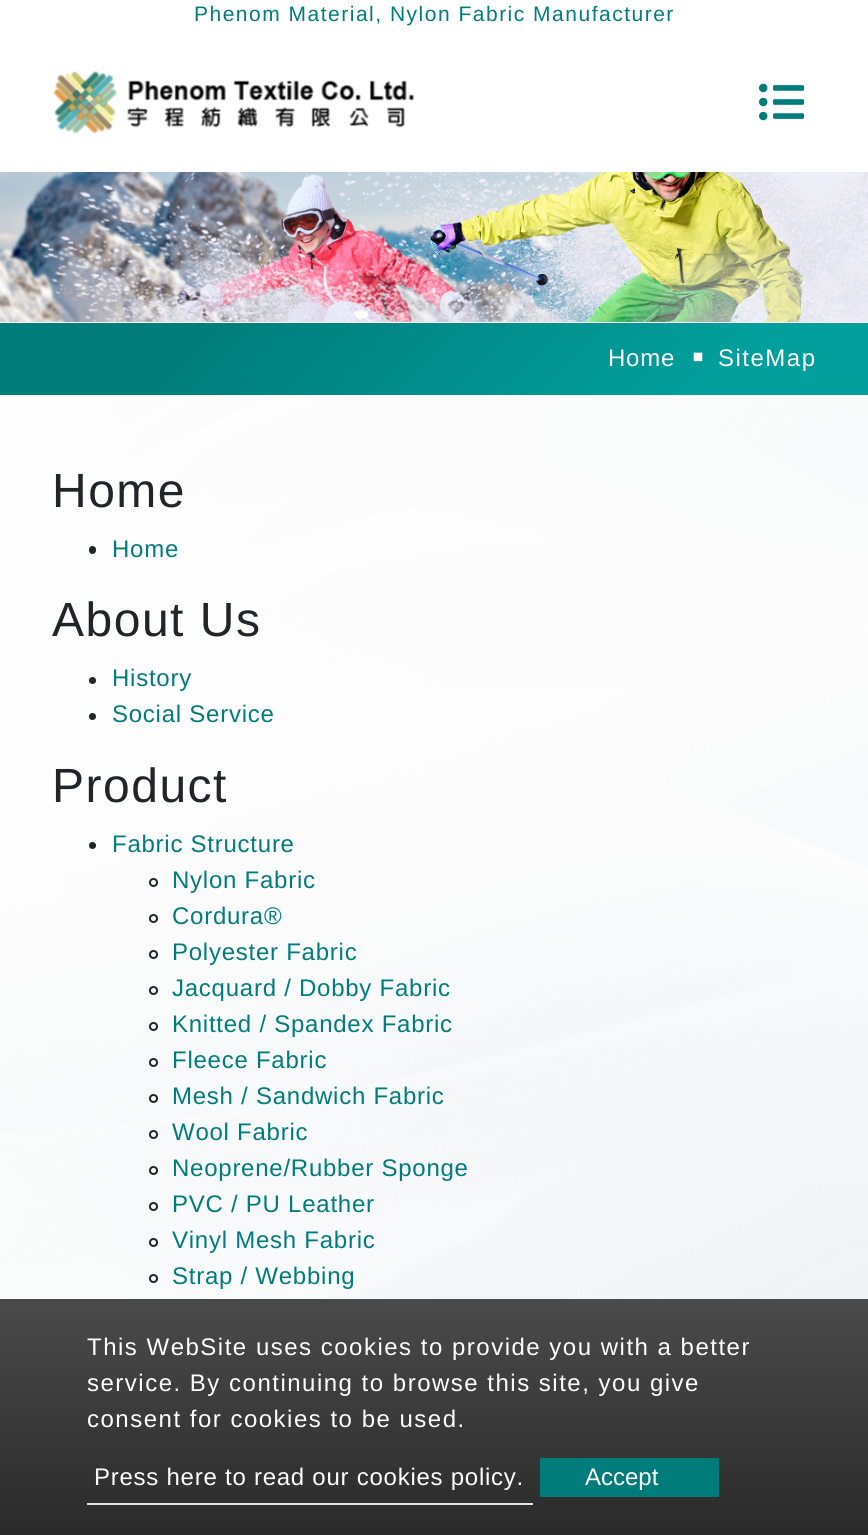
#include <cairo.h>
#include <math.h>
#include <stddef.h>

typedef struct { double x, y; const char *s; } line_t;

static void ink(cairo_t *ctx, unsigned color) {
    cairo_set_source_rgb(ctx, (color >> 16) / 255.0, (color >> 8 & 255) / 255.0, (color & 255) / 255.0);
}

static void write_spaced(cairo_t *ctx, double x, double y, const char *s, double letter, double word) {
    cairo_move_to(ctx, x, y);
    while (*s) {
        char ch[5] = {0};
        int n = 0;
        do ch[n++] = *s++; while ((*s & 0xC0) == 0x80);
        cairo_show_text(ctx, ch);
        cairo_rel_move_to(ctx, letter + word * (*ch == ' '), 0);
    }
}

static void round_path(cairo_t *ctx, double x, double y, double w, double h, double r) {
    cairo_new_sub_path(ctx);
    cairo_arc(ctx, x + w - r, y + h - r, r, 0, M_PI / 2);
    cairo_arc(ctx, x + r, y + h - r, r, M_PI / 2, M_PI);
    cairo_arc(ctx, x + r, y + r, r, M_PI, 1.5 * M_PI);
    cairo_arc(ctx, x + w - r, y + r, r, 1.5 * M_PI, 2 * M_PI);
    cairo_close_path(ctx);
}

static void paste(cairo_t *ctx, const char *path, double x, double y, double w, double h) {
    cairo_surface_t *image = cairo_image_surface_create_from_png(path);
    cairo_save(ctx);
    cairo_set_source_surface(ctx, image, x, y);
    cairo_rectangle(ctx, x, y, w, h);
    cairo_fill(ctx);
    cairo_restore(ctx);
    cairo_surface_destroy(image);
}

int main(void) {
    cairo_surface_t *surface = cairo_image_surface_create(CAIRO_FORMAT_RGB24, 868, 1535);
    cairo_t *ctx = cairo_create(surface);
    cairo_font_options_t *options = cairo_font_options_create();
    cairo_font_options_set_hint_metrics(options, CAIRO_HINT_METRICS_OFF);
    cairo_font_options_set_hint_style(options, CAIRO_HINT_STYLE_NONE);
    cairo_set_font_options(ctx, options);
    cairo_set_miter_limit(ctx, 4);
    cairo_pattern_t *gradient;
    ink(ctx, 0xFFFFFF);
    cairo_paint(ctx);
    cairo_select_font_face(ctx, "Liberation Sans", CAIRO_FONT_SLANT_NORMAL, CAIRO_FONT_WEIGHT_NORMAL);
    cairo_set_font_size(ctx, 21);
    ink(ctx, 0x007C7C);
    write_spaced(ctx, 194, 21, "Phenom Material, Nylon Fabric Manufacturer", 1.5, 0);
    paste(ctx, "media/1.png", 53, 71, 362, 63);
    paste(ctx, "media/2.png", 759, 83, 45, 38);
    paste(ctx, "media/3.png", 0, 322, 868, 977);
    paste(ctx, "media/4.png", 0, 172, 868, 150);
    gradient = cairo_pattern_create_linear(199, 123, 669, 594);
    cairo_pattern_add_color_stop_rgba(gradient, 0.21, 0, 0.486, 0.478, 1);
    cairo_pattern_add_color_stop_rgba(gradient, 0.82, 0.008, 0.624, 0.612, 1);
    cairo_set_source(ctx, gradient);
    cairo_pattern_destroy(gradient);
    cairo_rectangle(ctx, 0, 323, 868, 72);
    cairo_fill(ctx);
    cairo_set_font_size(ctx, 24);
    ink(ctx, 0xFFFFFF);
    write_spaced(ctx, 608, 366, "Home", 0.75, 0);
    cairo_select_font_face(ctx, "Chiron Hei HK", CAIRO_FONT_SLANT_NORMAL, CAIRO_FONT_WEIGHT_NORMAL);
    write_spaced(ctx, 692, 366, "￭", 0.75, 0);
    cairo_select_font_face(ctx, "Liberation Sans", CAIRO_FONT_SLANT_NORMAL, CAIRO_FONT_WEIGHT_NORMAL);
    write_spaced(ctx, 718, 366, "SiteMap", 1.5, 0);
    cairo_set_font_size(ctx, 48);
    ink(ctx, 0x212529);
    write_spaced(ctx, 52, 507, "Home", 1.5, 0);
    round_path(ctx, 89, 546, 7, 8, 3.5);
    cairo_fill(ctx);
    cairo_set_font_size(ctx, 24);
    ink(ctx, 0x007C7C);
    write_spaced(ctx, 112, 557, "Home", 0.75, 0);
    cairo_set_font_size(ctx, 48);
    ink(ctx, 0x212529);
    write_spaced(ctx, 52, 636, "About Us", 1.5, 0);
    cairo_new_path(ctx);
    cairo_arc(ctx, 92.5, 680.5, 3.5, 0, 2 * M_PI);
    cairo_fill(ctx);
    cairo_set_font_size(ctx, 24);
    ink(ctx, 0x007C7C);
    write_spaced(ctx, 112, 686, "History", 0.75, 0);
    ink(ctx, 0x212529);
    cairo_new_path(ctx);
    cairo_arc(ctx, 92.5, 716.5, 3.5, 0, 2 * M_PI);
    cairo_fill(ctx);
    ink(ctx, 0x007C7C);
    write_spaced(ctx, 112, 722, "Social Service", 0.75, 0);
    cairo_set_font_size(ctx, 48);
    ink(ctx, 0x212529);
    write_spaced(ctx, 52, 802, "Product", 1.5, 0);
    cairo_new_path(ctx);
    cairo_arc(ctx, 92.5, 845.5, 3.5, 0, 2 * M_PI);
    cairo_fill(ctx);
    cairo_set_font_size(ctx, 24);
    ink(ctx, 0x007C7C);
    write_spaced(ctx, 112, 852, "Fabric Structure", 0.75, 0);
    cairo_new_path(ctx);
    cairo_arc(ctx, 153.5, 882.5, 3.5, 0, 2 * M_PI);
    ink(ctx, 0x212529);
    cairo_stroke(ctx);
    ink(ctx, 0x007C7C);
    write_spaced(ctx, 172, 888, "Nylon Fabric", 0.75, 0);
    cairo_new_path(ctx);
    cairo_arc(ctx, 153.5, 918.5, 3.5, 0, 2 * M_PI);
    ink(ctx, 0x212529);
    cairo_stroke(ctx);
    ink(ctx, 0x007C7C);
    write_spaced(ctx, 172, 924, "Cordura®", 0.75, 0);
    cairo_new_path(ctx);
    cairo_arc(ctx, 153.5, 954.5, 3.5, 0, 2 * M_PI);
    ink(ctx, 0x212529);
    cairo_stroke(ctx);
    ink(ctx, 0x007C7C);
    write_spaced(ctx, 172, 960, "Polyester Fabric", 0.75, 0);
    cairo_new_path(ctx);
    cairo_arc(ctx, 153.5, 990.5, 3.5, 0, 2 * M_PI);
    ink(ctx, 0x212529);
    cairo_stroke(ctx);
    ink(ctx, 0x007C7C);
    write_spaced(ctx, 172, 996, "Jacquard / Dobby Fabric", 0.75, 0);
    cairo_new_path(ctx);
    cairo_arc(ctx, 153.5, 1026.5, 3.5, 0, 2 * M_PI);
    ink(ctx, 0x212529);
    cairo_stroke(ctx);
    ink(ctx, 0x007C7C);
    write_spaced(ctx, 172, 1032, "Knitted / Spandex Fabric", 0.75, 0);
    cairo_new_path(ctx);
    cairo_arc(ctx, 153.5, 1062.5, 3.5, 0, 2 * M_PI);
    ink(ctx, 0x212529);
    cairo_stroke(ctx);
    ink(ctx, 0x007C7C);
    write_spaced(ctx, 172, 1068, "Fleece Fabric", 0.75, 0);
    cairo_new_path(ctx);
    cairo_arc(ctx, 153.5, 1098.5, 3.5, 0, 2 * M_PI);
    ink(ctx, 0x212529);
    cairo_stroke(ctx);
    ink(ctx, 0x007C7C);
    write_spaced(ctx, 172, 1104, "Mesh / Sandwich Fabric", 0.75, 0);
    cairo_new_path(ctx);
    cairo_arc(ctx, 153.5, 1134.5, 3.5, 0, 2 * M_PI);
    ink(ctx, 0x212529);
    cairo_stroke(ctx);
    ink(ctx, 0x007C7C);
    write_spaced(ctx, 172, 1140, "Wool Fabric", 0.75, 0);
    cairo_new_path(ctx);
    cairo_arc(ctx, 153.5, 1170.5, 3.5, 0, 2 * M_PI);
    ink(ctx, 0x212529);
    cairo_stroke(ctx);
    ink(ctx, 0x007C7C);
    write_spaced(ctx, 172, 1176, "Neoprene/Rubber Sponge", 0.75, 0);
    cairo_new_path(ctx);
    cairo_arc(ctx, 153.5, 1206.5, 3.5, 0, 2 * M_PI);
    ink(ctx, 0x212529);
    cairo_stroke(ctx);
    ink(ctx, 0x007C7C);
    write_spaced(ctx, 172, 1212, "PVC / PU Leather", 0.75, 0);
    cairo_new_path(ctx);
    cairo_arc(ctx, 153.5, 1242.5, 3.5, 0, 2 * M_PI);
    ink(ctx, 0x212529);
    cairo_stroke(ctx);
    ink(ctx, 0x007C7C);
    write_spaced(ctx, 172, 1248, "Vinyl Mesh Fabric", 0.75, 0);
    cairo_new_path(ctx);
    cairo_arc(ctx, 153.5, 1278.5, 3.5, 0, 2 * M_PI);
    ink(ctx, 0x212529);
    cairo_stroke(ctx);
    ink(ctx, 0x007C7C);
    write_spaced(ctx, 172, 1284, "Strap / Webbing", 0.75, 0);
    gradient = cairo_pattern_create_linear(434, 1299, 434, 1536);
    cairo_pattern_add_color_stop_rgba(gradient, 0, 0.29, 0.29, 0.29, 1);
    cairo_pattern_add_color_stop_rgba(gradient, 1, 0.165, 0.165, 0.165, 1);
    cairo_set_source(ctx, gradient);
    cairo_pattern_destroy(gradient);
    cairo_rectangle(ctx, 0, 1299, 868, 236);
    cairo_fill(ctx);
    ink(ctx, 0xFFFFFF);
    {
        static const line_t items[] = {
            {87, 1355, "This WebSite uses cookies to provide you with a better"},
            {87, 1391, "service. By continuing to browse this site, you give"},
            {87, 1427, "consent for cookies to be used."},
        };
        for (size_t i = 0; i < sizeof items / sizeof *items; i++) {
            write_spaced(ctx, items[i].x, items[i].y, items[i].s, 1.5, 0);
        }
    }
    ink(ctx, 0xE3E3E3);
    cairo_rectangle(ctx, 87, 1503, 446, 2);
    cairo_fill(ctx);
    ink(ctx, 0xFFFFFF);
    write_spaced(ctx, 94, 1485, "Press here to read our cookies policy.", 0.75, 0);
    ink(ctx, 0x007C7A);
    cairo_rectangle(ctx, 540, 1458, 179, 39);
    cairo_fill(ctx);
    ink(ctx, 0xFFFFFF);
    cairo_move_to(ctx, 585, 1485);
    cairo_show_text(ctx, "Accept");
    cairo_surface_write_to_png(surface, "image.png");
    cairo_font_options_destroy(options);
    cairo_destroy(ctx);
    cairo_surface_destroy(surface);
    return 0;
}
